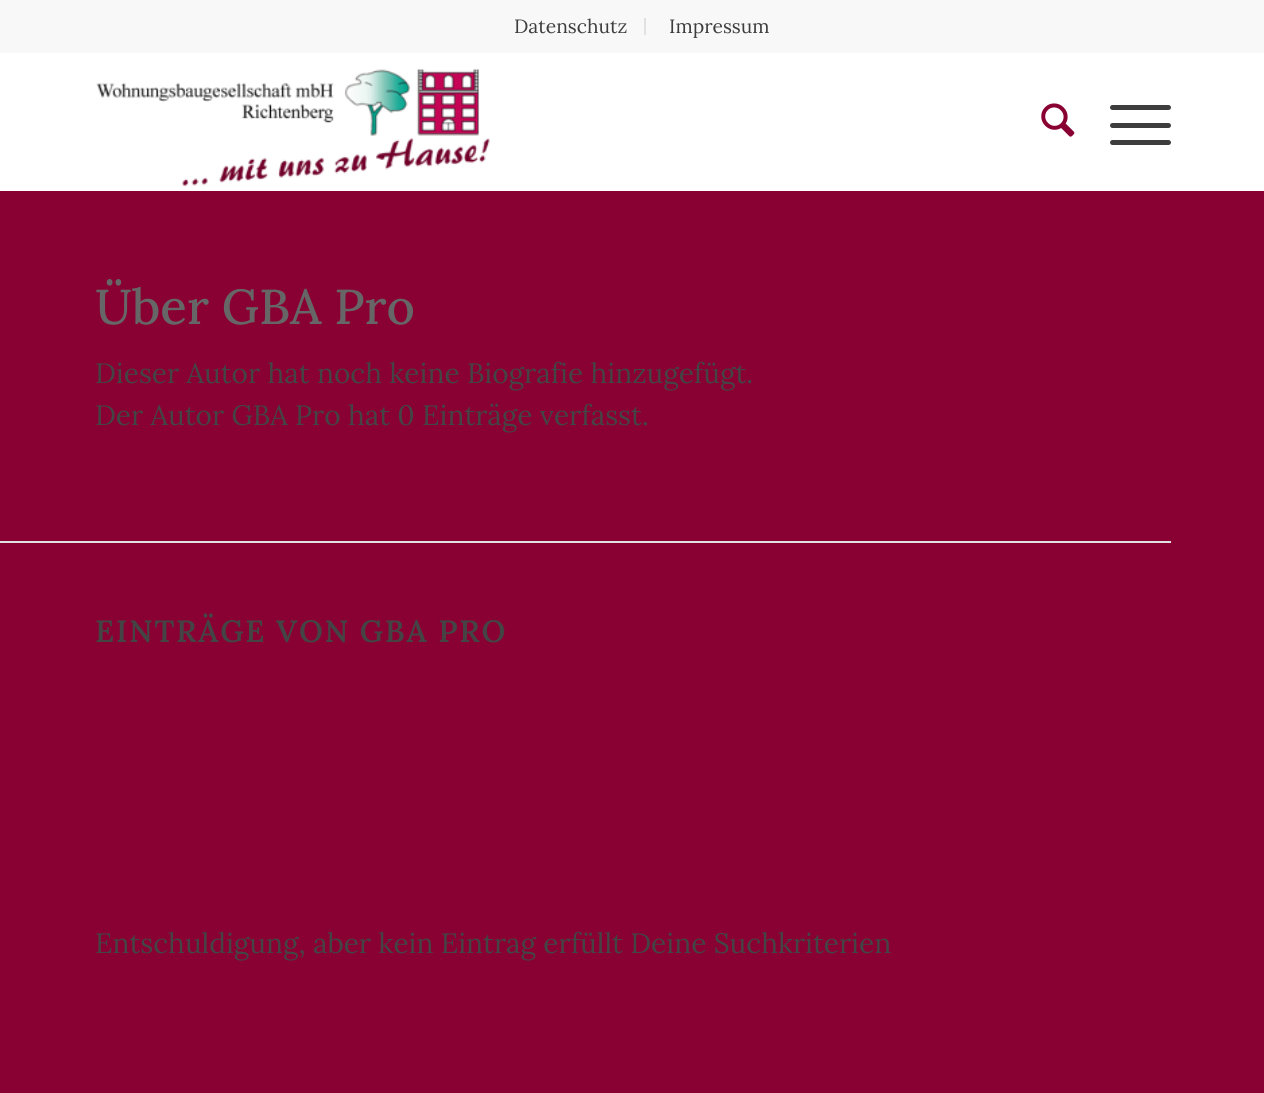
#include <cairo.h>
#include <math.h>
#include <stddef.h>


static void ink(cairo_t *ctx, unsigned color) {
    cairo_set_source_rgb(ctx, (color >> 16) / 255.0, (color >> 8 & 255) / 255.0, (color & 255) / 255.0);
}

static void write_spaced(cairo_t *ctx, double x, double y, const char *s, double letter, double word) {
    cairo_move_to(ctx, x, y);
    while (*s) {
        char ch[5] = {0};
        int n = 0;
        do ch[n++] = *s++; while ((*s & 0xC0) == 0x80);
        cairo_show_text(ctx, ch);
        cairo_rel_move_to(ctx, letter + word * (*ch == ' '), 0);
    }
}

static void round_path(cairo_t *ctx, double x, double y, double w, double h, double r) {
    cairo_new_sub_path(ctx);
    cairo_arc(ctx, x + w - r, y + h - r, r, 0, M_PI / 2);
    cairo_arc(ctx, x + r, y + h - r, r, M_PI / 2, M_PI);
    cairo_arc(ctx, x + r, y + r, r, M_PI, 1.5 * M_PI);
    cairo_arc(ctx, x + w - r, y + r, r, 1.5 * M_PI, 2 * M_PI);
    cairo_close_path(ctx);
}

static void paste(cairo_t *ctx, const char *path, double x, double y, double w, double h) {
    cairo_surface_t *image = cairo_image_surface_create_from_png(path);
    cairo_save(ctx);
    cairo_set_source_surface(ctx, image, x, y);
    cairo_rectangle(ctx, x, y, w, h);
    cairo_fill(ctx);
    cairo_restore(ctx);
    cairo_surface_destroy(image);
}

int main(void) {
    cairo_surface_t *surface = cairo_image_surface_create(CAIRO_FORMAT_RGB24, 1264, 1093);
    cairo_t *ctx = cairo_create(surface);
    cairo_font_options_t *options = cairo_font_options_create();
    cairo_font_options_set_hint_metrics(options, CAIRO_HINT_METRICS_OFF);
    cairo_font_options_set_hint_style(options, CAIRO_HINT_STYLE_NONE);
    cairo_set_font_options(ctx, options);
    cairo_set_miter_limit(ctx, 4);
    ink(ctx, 0x890032);
    cairo_paint(ctx);
    ink(ctx, 0xF8F8F8);
    cairo_rectangle(ctx, 0, 0, 1264, 53);
    cairo_fill(ctx);
    ink(ctx, 0xE1E1E1);
    cairo_rectangle(ctx, 644, 18, 2, 17);
    cairo_fill(ctx);
    cairo_select_font_face(ctx, "Lora", CAIRO_FONT_SLANT_NORMAL, CAIRO_FONT_WEIGHT_NORMAL);
    cairo_set_font_size(ctx, 19.25);
    ink(ctx, 0x3D3D3D);
    cairo_move_to(ctx, 514, 33);
    cairo_show_text(ctx, "Datenschutz");
    cairo_move_to(ctx, 669, 33);
    cairo_show_text(ctx, "Impressum");
    ink(ctx, 0xFFFFFF);
    cairo_rectangle(ctx, 0, 53, 1264, 138);
    cairo_fill(ctx);
    paste(ctx, "media/1.png", 96, 68, 394, 119);
    paste(ctx, "media/2.png", 1041, 103, 34, 34);
    ink(ctx, 0x3D3D3D);
    round_path(ctx, 1110, 123, 61, 5, 2.5);
    cairo_fill(ctx);
    round_path(ctx, 1110, 105, 61, 5, 2.5);
    cairo_fill(ctx);
    round_path(ctx, 1110, 140, 61, 5, 2.5);
    cairo_fill(ctx);
    cairo_select_font_face(ctx, "Lora Medium", CAIRO_FONT_SLANT_NORMAL, CAIRO_FONT_WEIGHT_NORMAL);
    cairo_set_font_size(ctx, 49);
    ink(ctx, 0x666666);
    cairo_move_to(ctx, 95, 324);
    cairo_show_text(ctx, "Über GBA Pro");
    cairo_select_font_face(ctx, "Lora", CAIRO_FONT_SLANT_NORMAL, CAIRO_FONT_WEIGHT_NORMAL);
    cairo_set_font_size(ctx, 28);
    ink(ctx, 0x444444);
    cairo_move_to(ctx, 95, 383);
    cairo_show_text(ctx, "Dieser Autor hat noch keine Biografie hinzugefügt.");
    cairo_move_to(ctx, 95, 425);
    cairo_show_text(ctx, "Der Autor GBA Pro hat 0 Einträge verfasst.");
    ink(ctx, 0xE1E1E1);
    cairo_rectangle(ctx, 0, 541, 1171, 2);
    cairo_fill(ctx);
    cairo_select_font_face(ctx, "Lora SemiBold", CAIRO_FONT_SLANT_NORMAL, CAIRO_FONT_WEIGHT_NORMAL);
    cairo_set_font_size(ctx, 30.75);
    ink(ctx, 0x444444);
    write_spaced(ctx, 95, 642, "EINTRÄGE VON GBA PRO", 1.75, 0);
    cairo_select_font_face(ctx, "Lora", CAIRO_FONT_SLANT_NORMAL, CAIRO_FONT_WEIGHT_NORMAL);
    cairo_set_font_size(ctx, 28);
    cairo_move_to(ctx, 95, 953);
    cairo_show_text(ctx, "Entschuldigung, aber kein Eintrag erfüllt Deine Suchkriterien");
    cairo_surface_write_to_png(surface, "image.png");
    cairo_font_options_destroy(options);
    cairo_destroy(ctx);
    cairo_surface_destroy(surface);
    return 0;
}
